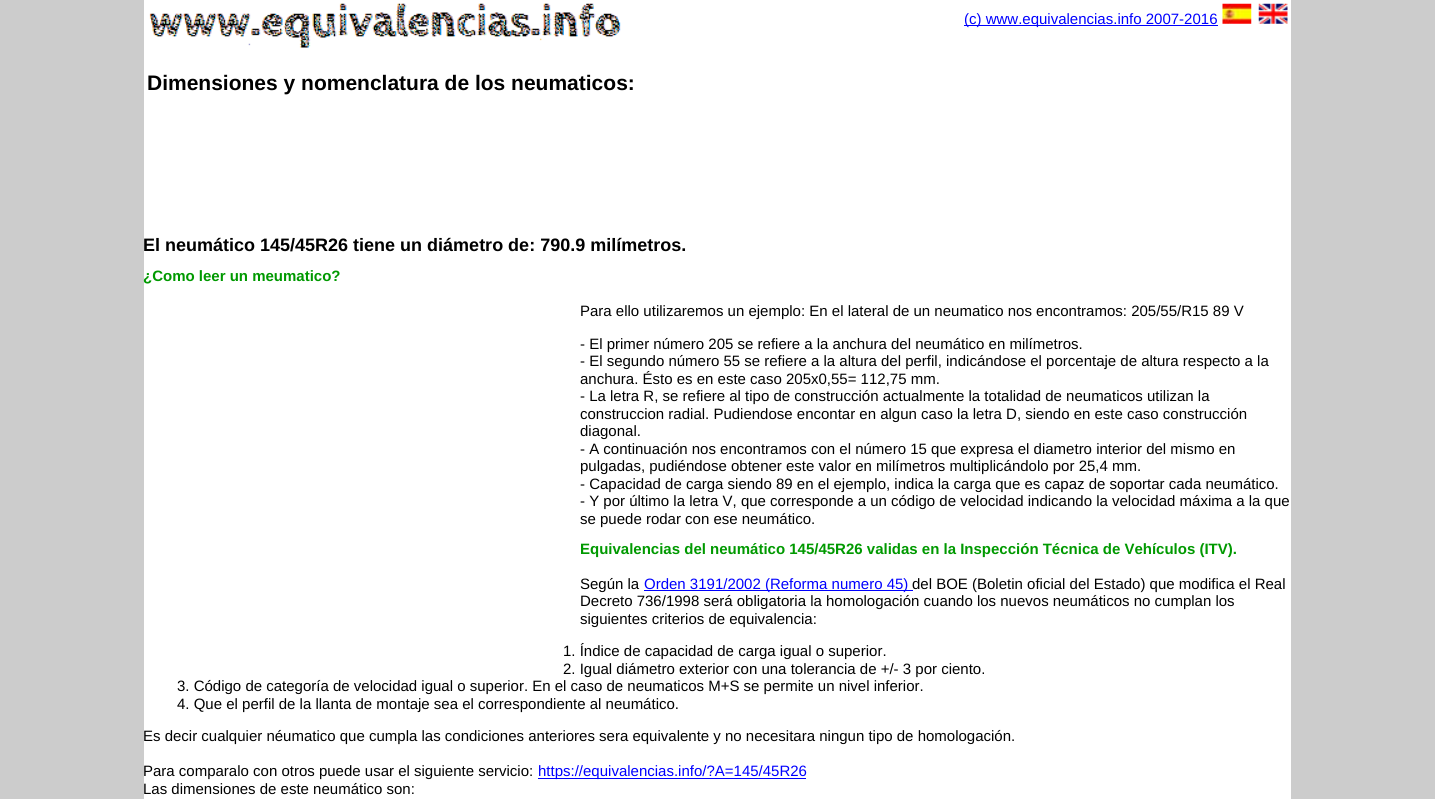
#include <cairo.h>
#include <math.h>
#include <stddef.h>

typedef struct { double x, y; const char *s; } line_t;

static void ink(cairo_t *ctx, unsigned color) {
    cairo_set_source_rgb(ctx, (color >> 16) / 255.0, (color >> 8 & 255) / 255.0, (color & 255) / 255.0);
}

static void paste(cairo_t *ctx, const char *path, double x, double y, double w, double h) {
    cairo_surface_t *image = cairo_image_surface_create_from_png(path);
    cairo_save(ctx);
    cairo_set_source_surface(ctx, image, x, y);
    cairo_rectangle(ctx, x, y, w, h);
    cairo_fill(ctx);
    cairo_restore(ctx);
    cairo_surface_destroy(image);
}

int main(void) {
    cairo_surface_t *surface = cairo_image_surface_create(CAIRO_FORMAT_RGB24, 1435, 799);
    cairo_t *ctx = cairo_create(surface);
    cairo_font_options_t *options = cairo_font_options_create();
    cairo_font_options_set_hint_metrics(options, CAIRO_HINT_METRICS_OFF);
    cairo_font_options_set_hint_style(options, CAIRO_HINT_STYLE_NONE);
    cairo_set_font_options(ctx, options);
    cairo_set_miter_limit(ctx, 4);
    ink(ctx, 0xCCCCCC);
    cairo_paint(ctx);
    ink(ctx, 0xFFFFFF);
    cairo_rectangle(ctx, 144, 0, 1147, 799);
    cairo_fill(ctx);
    ink(ctx, 0x0000FF);
    cairo_rectangle(ctx, 964, 25, 254, 1);
    cairo_fill(ctx);
    cairo_select_font_face(ctx, "Liberation Sans", CAIRO_FONT_SLANT_NORMAL, CAIRO_FONT_WEIGHT_NORMAL);
    cairo_set_font_size(ctx, 15);
    cairo_move_to(ctx, 964, 24);
    cairo_show_text(ctx, "(c) www.equivalencias.info 2007-2016");
    paste(ctx, "media/1.png", 1222, 3, 30, 21);
    paste(ctx, "media/2.png", 1258, 3, 30, 21);
    paste(ctx, "media/3.png", 149, 3, 472, 45);
    cairo_select_font_face(ctx, "Liberation Sans", CAIRO_FONT_SLANT_NORMAL, CAIRO_FONT_WEIGHT_BOLD);
    cairo_set_font_size(ctx, 21);
    ink(ctx, 0x000000);
    cairo_move_to(ctx, 147, 90);
    cairo_show_text(ctx, "Dimensiones y nomenclatura de los neumaticos:");
    cairo_set_font_size(ctx, 18);
    cairo_move_to(ctx, 143, 251);
    cairo_show_text(ctx, "El neumático 145/45R26 tiene un diámetro de: 790.9 milímetros.");
    cairo_set_font_size(ctx, 15);
    ink(ctx, 0x009900);
    cairo_move_to(ctx, 143, 281);
    cairo_show_text(ctx, "¿Como leer un meumatico?");
    cairo_select_font_face(ctx, "Liberation Sans", CAIRO_FONT_SLANT_NORMAL, CAIRO_FONT_WEIGHT_NORMAL);
    ink(ctx, 0x000000);
    {
        static const line_t items[] = {
            {580, 316, "Para ello utilizaremos un ejemplo: En el lateral de un neumatico nos encontramos: 205/55/R15 89 V"},
            {580, 349, "- El primer número 205 se refiere a la anchura del neumático en milímetros."},
            {580, 366, "- El segundo número 55 se refiere a la altura del perfil, indicándose el porcentaje de altura respecto a la"},
            {580, 384, "anchura. Ésto es en este caso 205x0,55= 112,75 mm."},
            {580, 401, "- La letra R, se refiere al tipo de construcción actualmente la totalidad de neumaticos utilizan la"},
            {580, 419, "construccion radial. Pudiendose encontar en algun caso la letra D, siendo en este caso construcción"},
            {580, 436, "diagonal."},
            {580, 454, "- A continuación nos encontramos con el número 15 que expresa el diametro interior del mismo en"},
            {580, 471, "pulgadas, pudiéndose obtener este valor en milímetros multiplicándolo por 25,4 mm."},
            {580, 489, "- Capacidad de carga siendo 89 en el ejemplo, indica la carga que es capaz de soportar cada neumático."},
            {580, 506, "- Y por último la letra V, que corresponde a un código de velocidad indicando la velocidad máxima a la que"},
            {580, 524, "se puede rodar con ese neumático."},
        };
        for (size_t i = 0; i < sizeof items / sizeof *items; i++) {
            cairo_move_to(ctx, items[i].x, items[i].y);
            cairo_show_text(ctx, items[i].s);
        }
    }
    cairo_select_font_face(ctx, "Liberation Sans", CAIRO_FONT_SLANT_NORMAL, CAIRO_FONT_WEIGHT_BOLD);
    ink(ctx, 0x009900);
    cairo_move_to(ctx, 580, 554);
    cairo_show_text(ctx, "Equivalencias del neumático 145/45R26 validas en la Inspección Técnica de Vehículos (ITV).");
    cairo_select_font_face(ctx, "Liberation Sans", CAIRO_FONT_SLANT_NORMAL, CAIRO_FONT_WEIGHT_NORMAL);
    ink(ctx, 0x000000);
    cairo_move_to(ctx, 580, 589);
    cairo_show_text(ctx, "Según la");
    ink(ctx, 0x0000FF);
    cairo_rectangle(ctx, 644, 590, 269, 1);
    cairo_fill(ctx);
    cairo_move_to(ctx, 644, 589);
    cairo_show_text(ctx, "Orden 3191/2002 (Reforma numero 45)");
    ink(ctx, 0x000000);
    {
        static const line_t items[] = {
            {912, 589, "del BOE (Boletin oficial del Estado) que modifica el Real"},
            {580, 606, "Decreto 736/1998 será obligatoria la homologación cuando los nuevos neumáticos no cumplan los"},
            {580, 624, "siguientes criterios de equivalencia:"},
            {563, 656, "1. Índice de capacidad de carga igual o superior."},
            {563, 674, "2. Igual diámetro exterior con una tolerancia de +/- 3 por ciento."},
            {177, 691, "3. Código de categoría de velocidad igual o superior. En el caso de neumaticos M+S se permite un nivel inferior."},
            {177, 709, "4. Que el perfil de la llanta de montaje sea el correspondiente al neumático."},
            {143, 741, "Es decir cualquier néumatico que cumpla las condiciones anteriores sera equivalente y no necesitara ningun tipo de homologación."},
            {143, 776, "Para comparalo con otros puede usar el siguiente servicio:"},
        };
        for (size_t i = 0; i < sizeof items / sizeof *items; i++) {
            cairo_move_to(ctx, items[i].x, items[i].y);
            cairo_show_text(ctx, items[i].s);
        }
    }
    ink(ctx, 0x0000FF);
    cairo_rectangle(ctx, 538, 778, 268, 1);
    cairo_fill(ctx);
    cairo_move_to(ctx, 538, 776);
    cairo_show_text(ctx, "https://equivalencias.info/?A=145/45R26");
    ink(ctx, 0x000000);
    cairo_move_to(ctx, 143, 794);
    cairo_show_text(ctx, "Las dimensiones de este neumático son:");
    cairo_surface_write_to_png(surface, "image.png");
    cairo_font_options_destroy(options);
    cairo_destroy(ctx);
    cairo_surface_destroy(surface);
    return 0;
}
